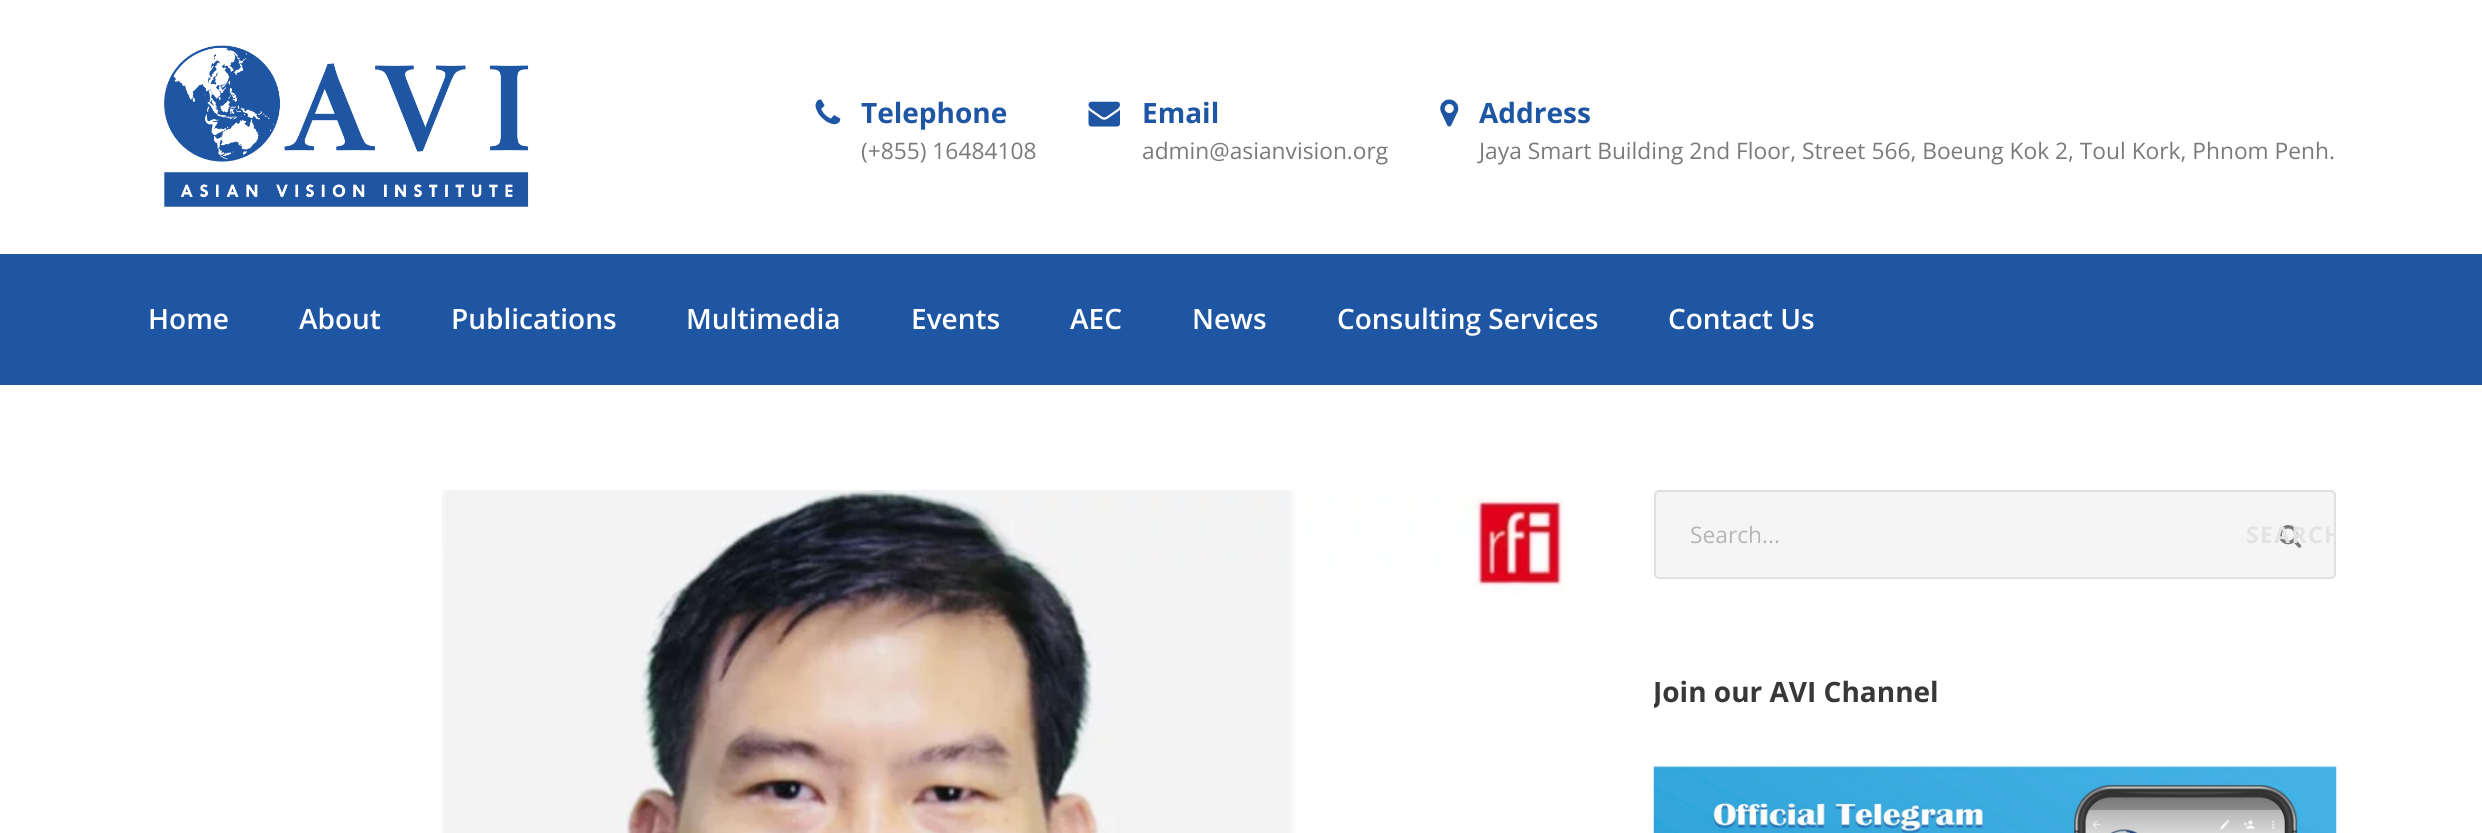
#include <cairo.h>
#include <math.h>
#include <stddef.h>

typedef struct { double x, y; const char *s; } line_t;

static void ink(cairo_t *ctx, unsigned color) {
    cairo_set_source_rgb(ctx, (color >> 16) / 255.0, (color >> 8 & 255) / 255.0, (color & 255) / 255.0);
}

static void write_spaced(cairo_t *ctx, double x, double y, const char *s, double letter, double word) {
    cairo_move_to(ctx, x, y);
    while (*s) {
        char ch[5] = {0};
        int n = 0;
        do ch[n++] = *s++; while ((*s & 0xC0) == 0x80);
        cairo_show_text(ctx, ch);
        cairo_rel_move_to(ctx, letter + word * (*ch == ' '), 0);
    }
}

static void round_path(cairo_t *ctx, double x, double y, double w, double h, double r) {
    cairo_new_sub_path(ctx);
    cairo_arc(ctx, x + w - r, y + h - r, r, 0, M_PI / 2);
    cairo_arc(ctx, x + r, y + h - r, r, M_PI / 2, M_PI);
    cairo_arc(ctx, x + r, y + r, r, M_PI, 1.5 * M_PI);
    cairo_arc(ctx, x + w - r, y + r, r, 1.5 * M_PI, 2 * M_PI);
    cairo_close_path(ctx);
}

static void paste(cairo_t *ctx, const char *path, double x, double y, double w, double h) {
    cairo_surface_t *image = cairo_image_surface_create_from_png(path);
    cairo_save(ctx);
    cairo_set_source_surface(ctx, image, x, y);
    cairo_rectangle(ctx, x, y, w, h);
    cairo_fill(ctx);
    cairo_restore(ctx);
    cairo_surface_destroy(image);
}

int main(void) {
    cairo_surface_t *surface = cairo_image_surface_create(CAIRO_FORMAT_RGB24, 2482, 833);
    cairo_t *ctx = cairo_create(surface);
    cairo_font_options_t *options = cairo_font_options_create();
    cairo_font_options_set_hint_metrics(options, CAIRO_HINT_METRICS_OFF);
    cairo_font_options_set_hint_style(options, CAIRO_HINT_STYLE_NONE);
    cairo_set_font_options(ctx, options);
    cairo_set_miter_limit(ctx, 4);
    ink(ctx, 0xFFFFFF);
    cairo_paint(ctx);
    paste(ctx, "media/1.png", 164, 45, 365, 162);
    paste(ctx, "media/2.png", 815, 99, 26, 26);
    cairo_select_font_face(ctx, "Open Sans", CAIRO_FONT_SLANT_NORMAL, CAIRO_FONT_WEIGHT_BOLD);
    cairo_set_font_size(ctx, 28);
    ink(ctx, 0x1E56A4);
    cairo_move_to(ctx, 861, 123);
    cairo_show_text(ctx, "Telephone");
    cairo_select_font_face(ctx, "Open Sans", CAIRO_FONT_SLANT_NORMAL, CAIRO_FONT_WEIGHT_NORMAL);
    cairo_set_font_size(ctx, 22.75);
    ink(ctx, 0x7A7A7A);
    cairo_move_to(ctx, 861, 159);
    cairo_show_text(ctx, "(+855) 16484108");
    paste(ctx, "media/3.png", 1088, 101, 32, 26);
    cairo_select_font_face(ctx, "Open Sans", CAIRO_FONT_SLANT_NORMAL, CAIRO_FONT_WEIGHT_BOLD);
    cairo_set_font_size(ctx, 28);
    ink(ctx, 0x1E56A4);
    cairo_move_to(ctx, 1142, 123);
    cairo_show_text(ctx, "Email");
    cairo_select_font_face(ctx, "Open Sans", CAIRO_FONT_SLANT_NORMAL, CAIRO_FONT_WEIGHT_NORMAL);
    cairo_set_font_size(ctx, 22.75);
    ink(ctx, 0x7A7A7A);
    cairo_move_to(ctx, 1142, 159);
    cairo_show_text(ctx, "admin@asianvision.org");
    paste(ctx, "media/4.png", 1440, 99, 19, 28);
    cairo_select_font_face(ctx, "Open Sans", CAIRO_FONT_SLANT_NORMAL, CAIRO_FONT_WEIGHT_BOLD);
    cairo_set_font_size(ctx, 28);
    ink(ctx, 0x1E56A4);
    cairo_move_to(ctx, 1479, 123);
    cairo_show_text(ctx, "Address");
    cairo_select_font_face(ctx, "Open Sans", CAIRO_FONT_SLANT_NORMAL, CAIRO_FONT_WEIGHT_NORMAL);
    cairo_set_font_size(ctx, 22.75);
    ink(ctx, 0x7A7A7A);
    cairo_move_to(ctx, 1479, 159);
    cairo_show_text(ctx, "Jaya Smart Building 2nd Floor, Street 566, Boeung Kok 2, Toul Kork, Phnom Penh.");
    ink(ctx, 0x1E56A4);
    cairo_rectangle(ctx, 0, 254, 2482, 131);
    cairo_fill(ctx);
    cairo_select_font_face(ctx, "Open Sans SemiBold", CAIRO_FONT_SLANT_NORMAL, CAIRO_FONT_WEIGHT_NORMAL);
    cairo_set_font_size(ctx, 28);
    ink(ctx, 0xFFFFFF);
    {
        static const line_t items[] = {
            {148, 329, "Home"},
            {299, 329, "About"},
            {451, 329, "Publications"},
            {686, 329, "Multimedia"},
            {911, 329, "Events"},
            {1070, 329, "AEC"},
            {1192, 329, "News"},
            {1337, 329, "Consulting Services"},
            {1668, 329, "Contact Us"},
        };
        for (size_t i = 0; i < sizeof items / sizeof *items; i++) {
            cairo_move_to(ctx, items[i].x, items[i].y);
            cairo_show_text(ctx, items[i].s);
        }
    }
    paste(ctx, "media/5.png", 441, 490, 1124, 343);
    ink(ctx, 0xF5F5F5);
    round_path(ctx, 1655, 491, 680, 87, 4);
    cairo_fill_preserve(ctx);
    ink(ctx, 0xE0E0E0);
    cairo_stroke(ctx);
    cairo_select_font_face(ctx, "Open Sans", CAIRO_FONT_SLANT_NORMAL, CAIRO_FONT_WEIGHT_NORMAL);
    cairo_set_font_size(ctx, 22.75);
    ink(ctx, 0xB5B5B5);
    cairo_move_to(ctx, 1690, 543);
    cairo_show_text(ctx, "Search...");
    paste(ctx, "media/6.png", 2278, 525, 24, 23);
    cairo_save(ctx);
    cairo_rectangle(ctx, 2247, 490, 89, 89);
    cairo_clip(ctx);
    cairo_select_font_face(ctx, "Open Sans", CAIRO_FONT_SLANT_NORMAL, CAIRO_FONT_WEIGHT_BOLD);
    ink(ctx, 0xE3E3E3);
    write_spaced(ctx, 2246, 543, "SEARCH", 1.5, 0);
    cairo_restore(ctx);
    cairo_save(ctx);
    cairo_rectangle(ctx, 1654, 676, 682, 33);
    cairo_clip(ctx);
    cairo_select_font_face(ctx, "Open Sans", CAIRO_FONT_SLANT_NORMAL, CAIRO_FONT_WEIGHT_BOLD);
    cairo_set_font_size(ctx, 28);
    ink(ctx, 0x383838);
    cairo_move_to(ctx, 1653, 702);
    cairo_show_text(ctx, "Join our AVI Channel");
    cairo_restore(ctx);
    paste(ctx, "media/7.png", 1653, 766, 684, 67);
    cairo_surface_write_to_png(surface, "image.png");
    cairo_font_options_destroy(options);
    cairo_destroy(ctx);
    cairo_surface_destroy(surface);
    return 0;
}
